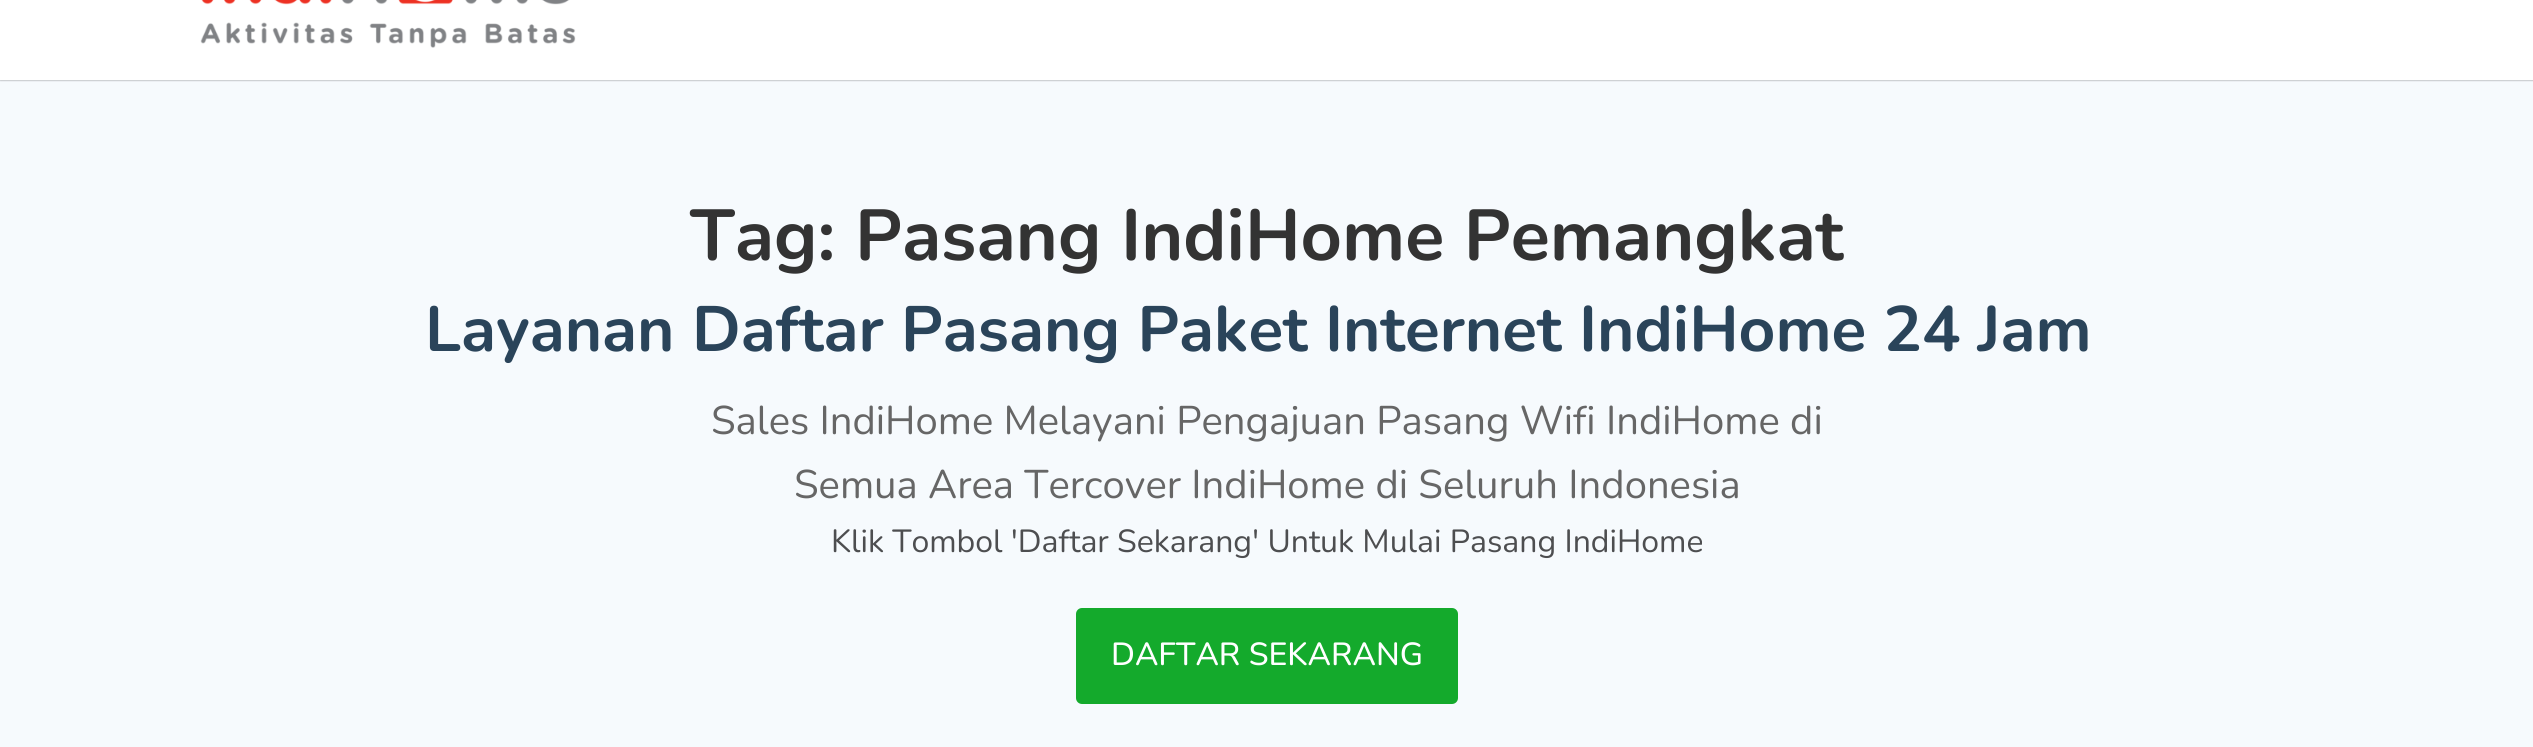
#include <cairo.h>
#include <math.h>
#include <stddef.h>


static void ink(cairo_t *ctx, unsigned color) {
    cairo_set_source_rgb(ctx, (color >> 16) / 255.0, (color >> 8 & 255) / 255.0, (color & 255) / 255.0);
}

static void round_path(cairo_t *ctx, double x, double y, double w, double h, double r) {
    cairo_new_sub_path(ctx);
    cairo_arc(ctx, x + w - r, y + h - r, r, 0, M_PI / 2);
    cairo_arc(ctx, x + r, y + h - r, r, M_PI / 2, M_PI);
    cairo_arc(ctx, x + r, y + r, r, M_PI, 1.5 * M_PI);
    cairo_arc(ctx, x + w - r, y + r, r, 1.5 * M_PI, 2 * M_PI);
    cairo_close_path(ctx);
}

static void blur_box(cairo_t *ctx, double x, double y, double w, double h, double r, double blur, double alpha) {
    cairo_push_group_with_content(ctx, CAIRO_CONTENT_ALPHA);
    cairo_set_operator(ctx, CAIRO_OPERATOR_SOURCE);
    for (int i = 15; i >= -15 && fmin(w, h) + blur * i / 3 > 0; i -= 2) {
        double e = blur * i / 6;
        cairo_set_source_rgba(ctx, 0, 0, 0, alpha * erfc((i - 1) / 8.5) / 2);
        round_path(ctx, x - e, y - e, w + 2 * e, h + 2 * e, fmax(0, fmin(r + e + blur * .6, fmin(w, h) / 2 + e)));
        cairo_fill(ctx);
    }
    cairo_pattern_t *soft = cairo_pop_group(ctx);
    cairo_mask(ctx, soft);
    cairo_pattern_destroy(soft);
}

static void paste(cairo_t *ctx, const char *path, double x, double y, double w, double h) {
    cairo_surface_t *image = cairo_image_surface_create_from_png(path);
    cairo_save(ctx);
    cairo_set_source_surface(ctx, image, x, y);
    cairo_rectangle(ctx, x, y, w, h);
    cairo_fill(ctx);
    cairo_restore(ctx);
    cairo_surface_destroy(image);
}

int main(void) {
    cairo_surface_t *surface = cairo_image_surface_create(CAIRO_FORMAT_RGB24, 2533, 747);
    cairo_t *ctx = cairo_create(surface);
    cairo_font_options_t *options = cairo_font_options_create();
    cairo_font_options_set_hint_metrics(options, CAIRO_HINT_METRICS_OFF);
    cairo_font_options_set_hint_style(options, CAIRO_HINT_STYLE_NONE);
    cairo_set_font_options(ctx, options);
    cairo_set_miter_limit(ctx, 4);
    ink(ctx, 0xFFFFFF);
    cairo_paint(ctx);
    ink(ctx, 0xF6FAFD);
    cairo_rectangle(ctx, 0, 80, 2533, 667);
    cairo_fill(ctx);
    cairo_save(ctx);
    cairo_rectangle(ctx, 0, 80, 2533, 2);
    cairo_clip(ctx);
    ink(ctx, 0x818286);
    blur_box(ctx, 0, -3, 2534, 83, 0, 1, 1);
    cairo_restore(ctx);
    paste(ctx, "media/1.png", 200, 0, 376, 48);
    cairo_select_font_face(ctx, "Nunito", CAIRO_FONT_SLANT_NORMAL, CAIRO_FONT_WEIGHT_BOLD);
    cairo_set_font_size(ctx, 72);
    ink(ctx, 0x333333);
    cairo_move_to(ctx, 690, 260);
    cairo_show_text(ctx, "Tag: Pasang IndiHome Pemangkat");
    cairo_set_font_size(ctx, 64);
    ink(ctx, 0x2A445A);
    cairo_move_to(ctx, 425, 351);
    cairo_show_text(ctx, "Layanan Daftar Pasang Paket Internet IndiHome 24 Jam");
    cairo_select_font_face(ctx, "Nunito", CAIRO_FONT_SLANT_NORMAL, CAIRO_FONT_WEIGHT_NORMAL);
    cairo_set_font_size(ctx, 40);
    ink(ctx, 0x666666);
    cairo_move_to(ctx, 711, 434);
    cairo_show_text(ctx, "Sales IndiHome Melayani Pengajuan Pasang Wifi IndiHome di");
    cairo_move_to(ctx, 794, 498);
    cairo_show_text(ctx, "Semua Area Tercover IndiHome di Seluruh Indonesia");
    cairo_set_font_size(ctx, 32);
    ink(ctx, 0x4D4E50);
    cairo_move_to(ctx, 831, 552);
    cairo_show_text(ctx, "Klik Tombol 'Daftar Sekarang' Untuk Mulai Pasang IndiHome");
    ink(ctx, 0x14AA2C);
    round_path(ctx, 1077, 609, 380, 94, 5);
    cairo_fill_preserve(ctx);
    cairo_stroke(ctx);
    cairo_select_font_face(ctx, "Nunito Medium", CAIRO_FONT_SLANT_NORMAL, CAIRO_FONT_WEIGHT_NORMAL);
    ink(ctx, 0xFFFFFF);
    cairo_move_to(ctx, 1111, 665);
    cairo_show_text(ctx, "DAFTAR SEKARANG");
    cairo_surface_write_to_png(surface, "image.png");
    cairo_font_options_destroy(options);
    cairo_destroy(ctx);
    cairo_surface_destroy(surface);
    return 0;
}
